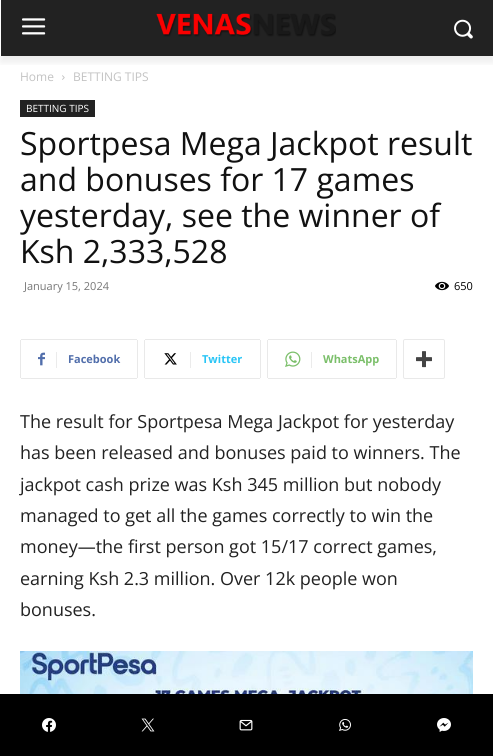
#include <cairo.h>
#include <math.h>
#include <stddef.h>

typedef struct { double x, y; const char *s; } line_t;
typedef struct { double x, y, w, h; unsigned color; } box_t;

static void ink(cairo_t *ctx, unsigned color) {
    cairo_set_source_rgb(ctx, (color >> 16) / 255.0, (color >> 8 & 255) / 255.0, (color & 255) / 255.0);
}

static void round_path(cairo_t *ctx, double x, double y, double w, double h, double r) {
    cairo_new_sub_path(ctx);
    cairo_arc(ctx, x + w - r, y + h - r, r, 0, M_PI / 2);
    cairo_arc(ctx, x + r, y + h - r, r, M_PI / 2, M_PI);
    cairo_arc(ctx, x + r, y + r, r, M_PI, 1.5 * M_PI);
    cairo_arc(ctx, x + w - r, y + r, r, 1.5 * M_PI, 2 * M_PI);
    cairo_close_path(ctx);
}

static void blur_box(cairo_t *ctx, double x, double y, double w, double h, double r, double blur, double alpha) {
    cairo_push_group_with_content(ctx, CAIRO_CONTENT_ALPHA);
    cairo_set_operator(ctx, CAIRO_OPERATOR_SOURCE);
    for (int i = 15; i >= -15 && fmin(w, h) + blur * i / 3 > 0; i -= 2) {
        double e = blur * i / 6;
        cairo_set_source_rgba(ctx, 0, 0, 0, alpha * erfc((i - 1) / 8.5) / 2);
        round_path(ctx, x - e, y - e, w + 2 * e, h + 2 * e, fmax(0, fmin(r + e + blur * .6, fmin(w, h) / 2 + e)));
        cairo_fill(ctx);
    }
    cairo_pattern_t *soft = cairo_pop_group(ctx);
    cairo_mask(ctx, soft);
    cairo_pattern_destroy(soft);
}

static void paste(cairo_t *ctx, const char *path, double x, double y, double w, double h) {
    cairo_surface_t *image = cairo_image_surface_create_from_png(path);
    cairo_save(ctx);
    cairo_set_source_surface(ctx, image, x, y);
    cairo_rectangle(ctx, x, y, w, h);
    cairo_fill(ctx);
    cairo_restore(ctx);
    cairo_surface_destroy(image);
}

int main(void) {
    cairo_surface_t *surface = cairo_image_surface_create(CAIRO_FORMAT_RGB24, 493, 756);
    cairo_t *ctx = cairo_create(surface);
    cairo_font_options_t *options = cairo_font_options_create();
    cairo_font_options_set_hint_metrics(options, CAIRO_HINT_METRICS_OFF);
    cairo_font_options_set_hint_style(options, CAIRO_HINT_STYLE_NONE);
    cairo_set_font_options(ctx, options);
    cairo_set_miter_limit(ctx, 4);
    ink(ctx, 0xFFFFFF);
    cairo_paint(ctx);
    ink(ctx, 0x222222);
    cairo_rectangle(ctx, 1, 0, 492, 56);
    cairo_fill(ctx);
    paste(ctx, "media/1.png", 22, 18, 24, 17);
    paste(ctx, "media/2.png", 156, 13, 180, 24);
    paste(ctx, "media/3.png", 454, 19, 19, 20);
    cairo_save(ctx);
    cairo_rectangle(ctx, 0, 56, 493, 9);
    cairo_clip(ctx);
    ink(ctx, 0x000000);
    blur_box(ctx, 1, 6, 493, 56, 0, 4, 0.08);
    cairo_restore(ctx);
    cairo_select_font_face(ctx, "Open Sans", CAIRO_FONT_SLANT_NORMAL, CAIRO_FONT_WEIGHT_NORMAL);
    cairo_set_font_size(ctx, 12);
    ink(ctx, 0xC3C3C3);
    cairo_move_to(ctx, 20, 81);
    cairo_show_text(ctx, "Home");
    paste(ctx, "media/4.png", 62, 75, 3, 5);
    cairo_move_to(ctx, 73, 81);
    cairo_show_text(ctx, "BETTING TIPS");
    ink(ctx, 0x222222);
    cairo_rectangle(ctx, 20, 100, 75, 17);
    cairo_fill(ctx);
    cairo_set_font_size(ctx, 10);
    ink(ctx, 0xFFFFFF);
    cairo_move_to(ctx, 26, 112);
    cairo_show_text(ctx, "BETTING TIPS");
    cairo_set_font_size(ctx, 32);
    ink(ctx, 0x111111);
    {
        static const line_t items[] = {
            {20, 155, "Sportpesa Mega Jackpot result"},
            {20, 191, "and bonuses for 17 games"},
            {20, 227, "yesterday, see the winner of"},
            {20, 263, "Ksh 2,333,528"},
        };
        for (size_t i = 0; i < sizeof items / sizeof *items; i++) {
            cairo_move_to(ctx, items[i].x, items[i].y);
            cairo_show_text(ctx, items[i].s);
        }
    }
    cairo_set_font_size(ctx, 11);
    ink(ctx, 0x767676);
    cairo_move_to(ctx, 24, 290);
    cairo_show_text(ctx, "January 15, 2024");
    paste(ctx, "media/5.png", 435, 281, 14, 10);
    ink(ctx, 0x000000);
    cairo_move_to(ctx, 454, 290);
    cairo_show_text(ctx, "650");
    ink(ctx, 0xE9E9E9);
    cairo_rectangle(ctx, 20, 340, 1, 38);
    cairo_fill(ctx);
    paste(ctx, "media/6.png", 38, 352, 7, 14);
    {
        static const box_t items[] = {
            {21, 339, 116, 1, 0xE9E9E9},
            {137, 340, 1, 38, 0xE9E9E9},
            {21, 378, 116, 1, 0xE9E9E9},
            {56, 352, 1, 16, 0xEBEBEB},
        };
        for (size_t i = 0; i < sizeof items / sizeof *items; i++) {
            ink(ctx, items[i].color);
            cairo_rectangle(ctx, items[i].x, items[i].y, items[i].w, items[i].h);
            cairo_fill(ctx);
        }
    }
    cairo_select_font_face(ctx, "Open Sans", CAIRO_FONT_SLANT_NORMAL, CAIRO_FONT_WEIGHT_BOLD);
    ink(ctx, 0x516EAB);
    cairo_move_to(ctx, 68, 363);
    cairo_show_text(ctx, "Facebook");
    ink(ctx, 0xE9E9E9);
    cairo_rectangle(ctx, 144, 340, 1, 38);
    cairo_fill(ctx);
    paste(ctx, "media/7.png", 164, 353, 13, 12);
    {
        static const box_t items[] = {
            {145, 339, 115, 1, 0xE9E9E9},
            {260, 340, 1, 38, 0xE9E9E9},
            {145, 378, 115, 1, 0xE9E9E9},
            {190, 352, 1, 16, 0xEBEBEB},
        };
        for (size_t i = 0; i < sizeof items / sizeof *items; i++) {
            ink(ctx, items[i].color);
            cairo_rectangle(ctx, items[i].x, items[i].y, items[i].w, items[i].h);
            cairo_fill(ctx);
        }
    }
    ink(ctx, 0x29C5F6);
    cairo_move_to(ctx, 202, 363);
    cairo_show_text(ctx, "Twitter");
    ink(ctx, 0xE9E9E9);
    cairo_rectangle(ctx, 267, 340, 1, 38);
    cairo_fill(ctx);
    paste(ctx, "media/8.png", 285, 351, 16, 16);
    {
        static const box_t items[] = {
            {268, 339, 128, 1, 0xE9E9E9},
            {396, 340, 1, 38, 0xE9E9E9},
            {268, 378, 128, 1, 0xE9E9E9},
            {311, 352, 1, 16, 0xEBEBEB},
        };
        for (size_t i = 0; i < sizeof items / sizeof *items; i++) {
            ink(ctx, items[i].color);
            cairo_rectangle(ctx, items[i].x, items[i].y, items[i].w, items[i].h);
            cairo_fill(ctx);
        }
    }
    ink(ctx, 0x7BBF6A);
    cairo_move_to(ctx, 323, 363);
    cairo_show_text(ctx, "WhatsApp");
    round_path(ctx, 403.5, 339.5, 41, 39, 1.5);
    ink(ctx, 0xE9E9E9);
    cairo_set_line_width(ctx, 1);
    cairo_stroke(ctx);
    paste(ctx, "media/9.png", 416, 351, 16, 17);
    cairo_select_font_face(ctx, "Open Sans", CAIRO_FONT_SLANT_NORMAL, CAIRO_FONT_WEIGHT_NORMAL);
    cairo_set_font_size(ctx, 18);
    ink(ctx, 0x222222);
    {
        static const line_t items[] = {
            {20, 428, "The result for Sportpesa Mega Jackpot for yesterday"},
            {20, 459, "has been released and bonuses paid to winners. The"},
            {20, 491, "jackpot cash prize was Ksh 345 million but nobody"},
            {20, 522, "managed to get all the games correctly to win the"},
            {20, 553, "money—the first person got 15/17 correct games,"},
            {20, 585, "earning Ksh 2.3 million. Over 12k people won"},
            {20, 616, "bonuses."},
        };
        for (size_t i = 0; i < sizeof items / sizeof *items; i++) {
            cairo_move_to(ctx, items[i].x, items[i].y);
            cairo_show_text(ctx, items[i].s);
        }
    }
    paste(ctx, "media/10.png", 20, 651, 453, 43);
    ink(ctx, 0x000000);
    cairo_rectangle(ctx, 0, 694, 493, 62);
    cairo_fill(ctx);
    paste(ctx, "media/11.png", 42, 718, 14, 14);
    paste(ctx, "media/12.png", 141, 718, 14, 14);
    paste(ctx, "media/13.png", 239, 719, 14, 12);
    paste(ctx, "media/14.png", 339, 719, 12, 12);
    paste(ctx, "media/15.png", 437, 718, 14, 14);
    cairo_surface_write_to_png(surface, "image.png");
    cairo_font_options_destroy(options);
    cairo_destroy(ctx);
    cairo_surface_destroy(surface);
    return 0;
}
